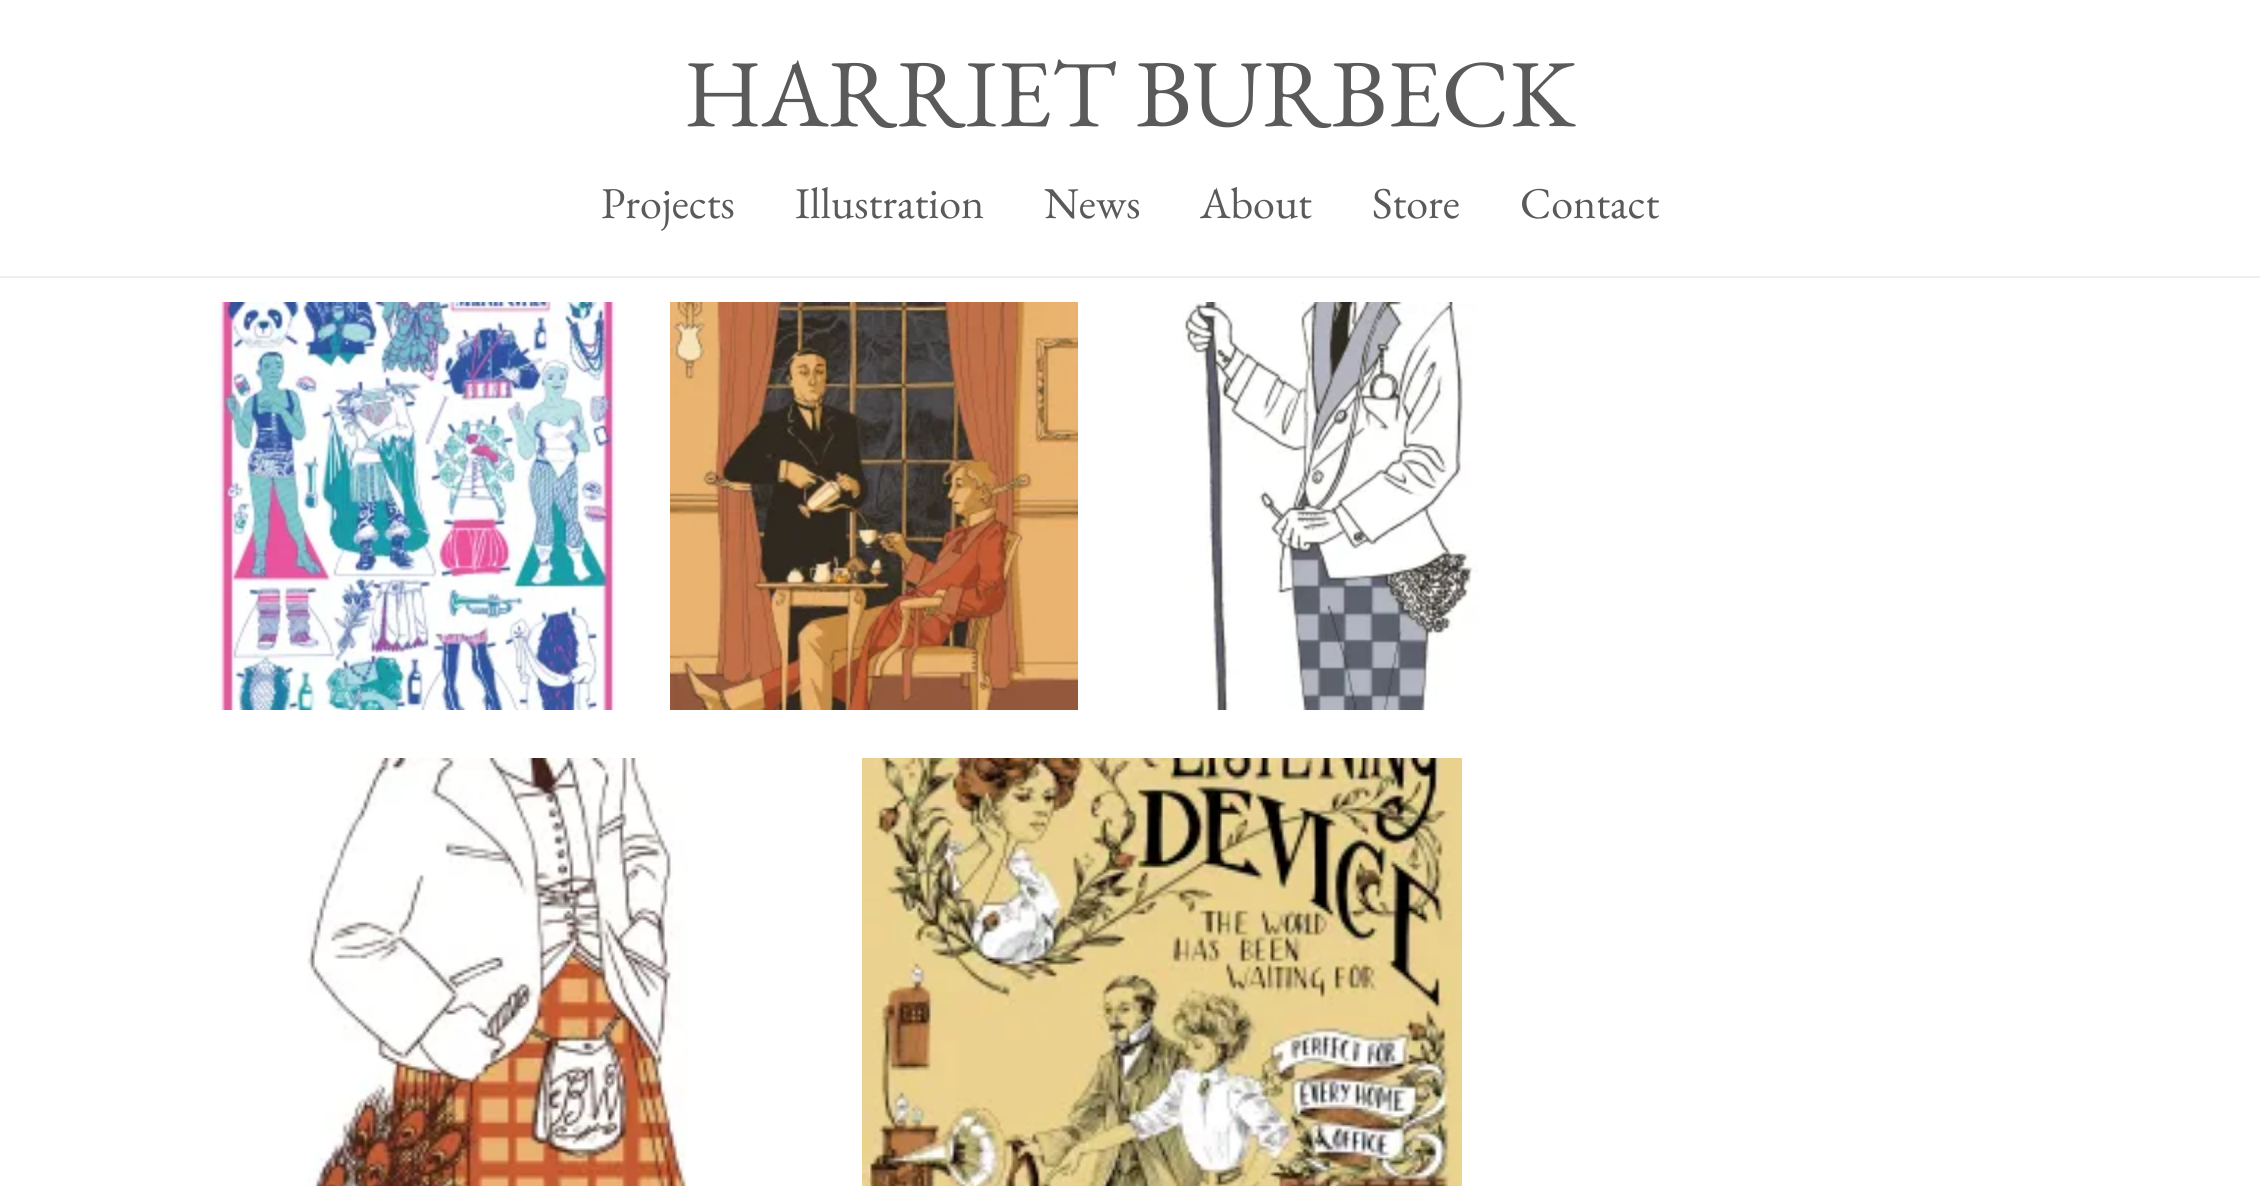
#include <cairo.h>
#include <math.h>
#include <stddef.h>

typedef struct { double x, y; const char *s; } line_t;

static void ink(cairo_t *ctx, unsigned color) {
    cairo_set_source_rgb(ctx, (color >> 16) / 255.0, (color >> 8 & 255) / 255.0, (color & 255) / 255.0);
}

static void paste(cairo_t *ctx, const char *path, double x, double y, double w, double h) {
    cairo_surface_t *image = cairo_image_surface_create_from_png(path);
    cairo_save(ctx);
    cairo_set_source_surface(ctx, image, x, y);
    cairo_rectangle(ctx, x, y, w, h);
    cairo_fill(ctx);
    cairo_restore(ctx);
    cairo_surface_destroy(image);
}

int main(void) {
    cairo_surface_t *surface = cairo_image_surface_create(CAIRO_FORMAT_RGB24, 2260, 1186);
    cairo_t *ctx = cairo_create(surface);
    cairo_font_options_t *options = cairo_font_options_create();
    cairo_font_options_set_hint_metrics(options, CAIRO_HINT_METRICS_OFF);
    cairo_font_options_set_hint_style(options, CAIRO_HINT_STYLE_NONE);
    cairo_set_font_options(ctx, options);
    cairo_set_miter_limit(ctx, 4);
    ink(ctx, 0xFFFFFF);
    cairo_paint(ctx);
    cairo_select_font_face(ctx, "EB Garamond", CAIRO_FONT_SLANT_NORMAL, CAIRO_FONT_WEIGHT_NORMAL);
    cairo_set_font_size(ctx, 96);
    ink(ctx, 0x5A5A5A);
    cairo_move_to(ctx, 684, 126);
    cairo_show_text(ctx, "HARRIET BURBECK");
    cairo_set_font_size(ctx, 44);
    {
        static const line_t items[] = {
            {601, 218, "Projects"},
            {795, 218, "Illustration"},
            {1044, 218, "News"},
            {1200, 218, "About"},
            {1372, 218, "Store"},
            {1520, 218, "Contact"},
        };
        for (size_t i = 0; i < sizeof items / sizeof *items; i++) {
            cairo_move_to(ctx, items[i].x, items[i].y);
            cairo_show_text(ctx, items[i].s);
        }
    }
    ink(ctx, 0xEEEEEE);
    cairo_rectangle(ctx, 0, 276, 2260, 2);
    cairo_fill(ctx);
    paste(ctx, "media/1.png", 214, 302, 402, 408);
    paste(ctx, "media/2.png", 670, 302, 408, 408);
    paste(ctx, "media/3.png", 1182, 302, 296, 408);
    paste(ctx, "media/4.png", 307, 758, 381, 428);
    paste(ctx, "media/5.png", 862, 758, 600, 428);
    cairo_surface_write_to_png(surface, "image.png");
    cairo_font_options_destroy(options);
    cairo_destroy(ctx);
    cairo_surface_destroy(surface);
    return 0;
}
